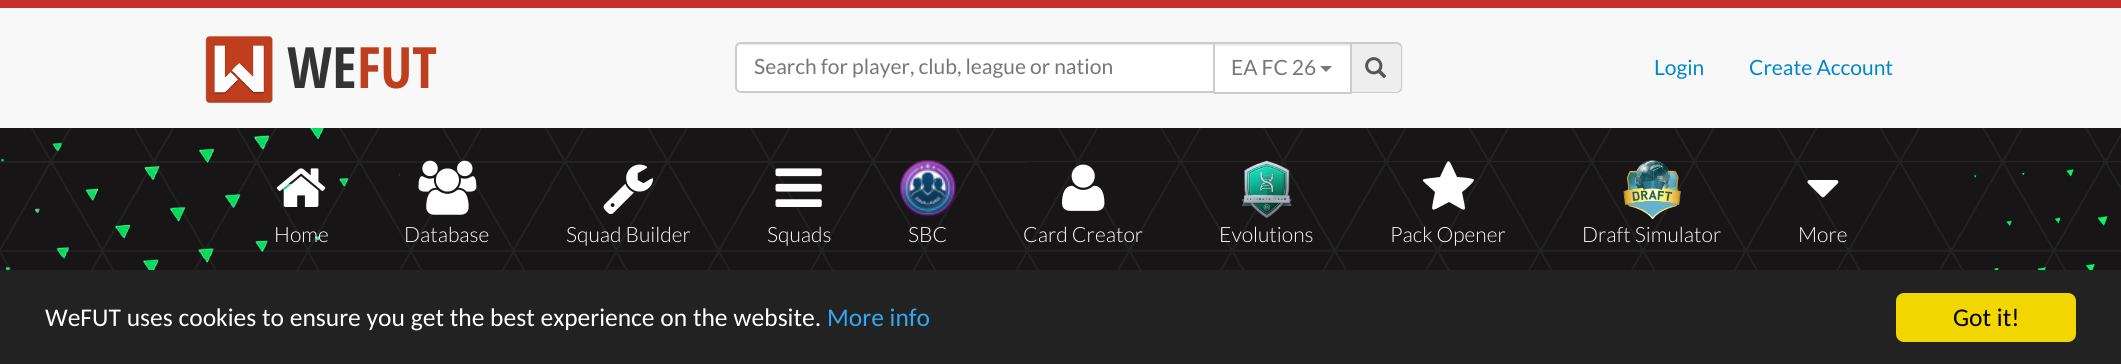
#include <cairo.h>
#include <math.h>
#include <stddef.h>

typedef struct { double x, y, w, h; unsigned color; } box_t;

static void ink(cairo_t *ctx, unsigned color) {
    cairo_set_source_rgb(ctx, (color >> 16) / 255.0, (color >> 8 & 255) / 255.0, (color & 255) / 255.0);
}

static void round_path(cairo_t *ctx, double x, double y, double w, double h, double r) {
    cairo_new_sub_path(ctx);
    cairo_arc(ctx, x + w - r, y + h - r, r, 0, M_PI / 2);
    cairo_arc(ctx, x + r, y + h - r, r, M_PI / 2, M_PI);
    cairo_arc(ctx, x + r, y + r, r, M_PI, 1.5 * M_PI);
    cairo_arc(ctx, x + w - r, y + r, r, 1.5 * M_PI, 2 * M_PI);
    cairo_close_path(ctx);
}

static void paste(cairo_t *ctx, const char *path, double x, double y, double w, double h) {
    cairo_surface_t *image = cairo_image_surface_create_from_png(path);
    cairo_save(ctx);
    cairo_set_source_surface(ctx, image, x, y);
    cairo_rectangle(ctx, x, y, w, h);
    cairo_fill(ctx);
    cairo_restore(ctx);
    cairo_surface_destroy(image);
}

int main(void) {
    cairo_surface_t *surface = cairo_image_surface_create(CAIRO_FORMAT_RGB24, 2121, 364);
    cairo_t *ctx = cairo_create(surface);
    cairo_font_options_t *options = cairo_font_options_create();
    cairo_font_options_set_hint_metrics(options, CAIRO_HINT_METRICS_OFF);
    cairo_font_options_set_hint_style(options, CAIRO_HINT_STYLE_NONE);
    cairo_set_font_options(ctx, options);
    cairo_set_miter_limit(ctx, 4);
    ink(ctx, 0xFFFFFF);
    cairo_paint(ctx);
    ink(ctx, 0xF8F8F8);
    cairo_rectangle(ctx, 0, 8, 2121, 120);
    cairo_fill(ctx);
    ink(ctx, 0xC72C2C);
    cairo_rectangle(ctx, 0, 0, 2121, 8);
    cairo_fill(ctx);
    paste(ctx, "media/1.png", 205, 36, 68, 68);
    cairo_select_font_face(ctx, "Open Sans Condensed", CAIRO_FONT_SLANT_NORMAL, CAIRO_FONT_WEIGHT_BOLD);
    cairo_set_font_size(ctx, 57);
    ink(ctx, 0x333333);
    cairo_move_to(ctx, 287, 88);
    cairo_show_text(ctx, "WE");
    ink(ctx, 0xBE3E1D);
    cairo_move_to(ctx, 357, 88);
    cairo_show_text(ctx, "FUT");
    ink(ctx, 0xECECEC);
    cairo_rectangle(ctx, 1214, 44, 136, 2);
    cairo_fill(ctx);
    ink(ctx, 0xEEEEEE);
    cairo_new_path(ctx);
    cairo_move_to(ctx, 1350, 42);
    cairo_line_to(ctx, 1397, 42);
    cairo_curve_to(ctx, 1400.5, 42, 1403, 44.5, 1403, 48);
    cairo_line_to(ctx, 1403, 87);
    cairo_curve_to(ctx, 1403, 90.5, 1400.5, 93, 1397, 93);
    cairo_line_to(ctx, 1350, 93);
    cairo_close_path(ctx);
    cairo_fill(ctx);
    ink(ctx, 0xCCCCCC);
    cairo_set_fill_rule(ctx, CAIRO_FILL_RULE_EVEN_ODD);
    cairo_new_path(ctx);
    cairo_move_to(ctx, 1350, 42);
    cairo_line_to(ctx, 1396, 42);
    cairo_curve_to(ctx, 1400, 42, 1402, 45, 1402, 48);
    cairo_line_to(ctx, 1402, 87);
    cairo_curve_to(ctx, 1402, 90, 1400, 93, 1396, 93);
    cairo_line_to(ctx, 1350, 93);
    cairo_close_path(ctx);
    cairo_move_to(ctx, 1350, 44);
    cairo_line_to(ctx, 1396, 44);
    cairo_curve_to(ctx, 1399, 44, 1401, 46, 1401, 48);
    cairo_line_to(ctx, 1401, 87);
    cairo_curve_to(ctx, 1401, 89, 1399, 92, 1396, 92);
    cairo_line_to(ctx, 1350, 92);
    cairo_close_path(ctx);
    cairo_fill(ctx);
    {
        static const box_t items[] = {
            {1214, 42, 138, 2, 0xCCCCCC},
            {1350, 42, 2, 51, 0xCCCCCC},
            {1214, 92, 138, 2, 0xCCCCCC},
        };
        for (size_t i = 0; i < sizeof items / sizeof *items; i++) {
            ink(ctx, items[i].color);
            cairo_rectangle(ctx, items[i].x, items[i].y, items[i].w, items[i].h);
            cairo_fill(ctx);
        }
    }
    ink(ctx, 0xFFFFFF);
    cairo_new_path(ctx);
    cairo_move_to(ctx, 741, 42);
    cairo_line_to(ctx, 1215, 42);
    cairo_line_to(ctx, 1215, 93);
    cairo_line_to(ctx, 741, 93);
    cairo_curve_to(ctx, 737.5, 93, 735, 90.5, 735, 87);
    cairo_line_to(ctx, 735, 48);
    cairo_curve_to(ctx, 735, 44.5, 737.5, 42, 741, 42);
    cairo_close_path(ctx);
    cairo_fill(ctx);
    ink(ctx, 0xECECEC);
    cairo_set_fill_rule(ctx, CAIRO_FILL_RULE_WINDING);
    cairo_new_path(ctx);
    cairo_move_to(ctx, 741, 45);
    cairo_line_to(ctx, 1214, 45);
    cairo_line_to(ctx, 1214, 44);
    cairo_line_to(ctx, 742, 44);
    cairo_curve_to(ctx, 740, 44, 739, 45, 738, 46);
    cairo_close_path(ctx);
    cairo_fill(ctx);
    cairo_new_path(ctx);
    cairo_move_to(ctx, 741, 43);
    cairo_line_to(ctx, 1214, 43);
    cairo_line_to(ctx, 1214, 92);
    cairo_line_to(ctx, 741, 92);
    cairo_curve_to(ctx, 738, 92, 736, 90, 736, 87);
    cairo_line_to(ctx, 736, 48);
    cairo_curve_to(ctx, 736, 45, 738, 43, 741, 43);
    cairo_close_path(ctx);
    ink(ctx, 0xCCCCCC);
    cairo_stroke(ctx);
    cairo_select_font_face(ctx, "Lato", CAIRO_FONT_SLANT_NORMAL, CAIRO_FONT_WEIGHT_NORMAL);
    cairo_set_font_size(ctx, 21);
    ink(ctx, 0x777777);
    cairo_move_to(ctx, 754, 74);
    cairo_show_text(ctx, "Search for player, club, league or nation");
    ink(ctx, 0xFFFFFF);
    cairo_rectangle(ctx, 1215, 46, 135, 46);
    cairo_fill(ctx);
    ink(ctx, 0x777777);
    cairo_move_to(ctx, 1231, 75);
    cairo_show_text(ctx, "EA FC 26");
    cairo_new_path(ctx);
    cairo_move_to(ctx, 1320, 66);
    cairo_line_to(ctx, 1332, 66);
    cairo_line_to(ctx, 1326, 72);
    cairo_close_path(ctx);
    cairo_fill(ctx);
    paste(ctx, "media/2.png", 1365, 57, 22, 22);
    ink(ctx, 0x0088CC);
    cairo_move_to(ctx, 1654, 75);
    cairo_show_text(ctx, "Login");
    cairo_move_to(ctx, 1749, 75);
    cairo_show_text(ctx, "Create Account");
    paste(ctx, "media/3.png", 0, 128, 2121, 142);
    paste(ctx, "media/4.png", 276, 168, 50, 39);
    cairo_select_font_face(ctx, "Lato Light", CAIRO_FONT_SLANT_NORMAL, CAIRO_FONT_WEIGHT_NORMAL);
    ink(ctx, 0xFFFFFF);
    cairo_move_to(ctx, 274, 242);
    cairo_show_text(ctx, "Home");
    paste(ctx, "media/5.png", 418, 160, 59, 55);
    cairo_move_to(ctx, 404, 242);
    cairo_show_text(ctx, "Database");
    paste(ctx, "media/6.png", 603, 164, 51, 51);
    cairo_move_to(ctx, 566, 242);
    cairo_show_text(ctx, "Squad Builder");
    paste(ctx, "media/7.png", 775, 168, 47, 39);
    cairo_move_to(ctx, 767, 242);
    cairo_show_text(ctx, "Squads");
    paste(ctx, "media/8.png", 900, 160, 56, 57);
    cairo_move_to(ctx, 908, 242);
    cairo_show_text(ctx, "SBC");
    paste(ctx, "media/9.png", 1062, 164, 43, 47);
    cairo_move_to(ctx, 1023, 242);
    cairo_show_text(ctx, "Card Creator");
    paste(ctx, "media/10.png", 1241, 160, 51, 59);
    cairo_move_to(ctx, 1219, 242);
    cairo_show_text(ctx, "Evolutions");
    cairo_new_path(ctx);
    cairo_move_to(ctx, 1474, 180);
    cairo_curve_to(ctx, 1474, 182, 1464, 191, 1462, 192);
    cairo_curve_to(ctx, 1466, 214, 1469, 213, 1449, 202);
    cairo_curve_to(ctx, 1428, 213, 1431, 214, 1435, 192);
    cairo_curve_to(ctx, 1419, 177, 1417, 180, 1440, 177);
    cairo_curve_to(ctx, 1450, 156, 1447, 156, 1457, 177);
    cairo_curve_to(ctx, 1459, 177, 1474, 178, 1474, 180);
    cairo_close_path(ctx);
    cairo_fill(ctx);
    cairo_move_to(ctx, 1390, 242);
    cairo_show_text(ctx, "Pack Opener");
    paste(ctx, "media/11.png", 1623, 160, 58, 59);
    cairo_move_to(ctx, 1582, 242);
    cairo_show_text(ctx, "Draft Simulator");
    paste(ctx, "media/12.png", 1807, 180, 32, 18);
    cairo_move_to(ctx, 1798, 242);
    cairo_show_text(ctx, "More");
    ink(ctx, 0x222222);
    cairo_rectangle(ctx, 0, 270, 2121, 94);
    cairo_fill(ctx);
    cairo_select_font_face(ctx, "Carlito", CAIRO_FONT_SLANT_NORMAL, CAIRO_FONT_WEIGHT_NORMAL);
    cairo_set_font_size(ctx, 25.5);
    ink(ctx, 0xFFFFFF);
    cairo_move_to(ctx, 45, 326);
    cairo_show_text(ctx, "WeFUT uses cookies to ensure you get the best experience on the website.");
    ink(ctx, 0x31A8F0);
    cairo_move_to(ctx, 827, 326);
    cairo_show_text(ctx, "More info");
    ink(ctx, 0xF1D600);
    round_path(ctx, 1896, 293, 180, 49, 8);
    cairo_fill(ctx);
    ink(ctx, 0x000000);
    cairo_move_to(ctx, 1953, 326);
    cairo_show_text(ctx, "Got it!");
    cairo_surface_write_to_png(surface, "image.png");
    cairo_font_options_destroy(options);
    cairo_destroy(ctx);
    cairo_surface_destroy(surface);
    return 0;
}
